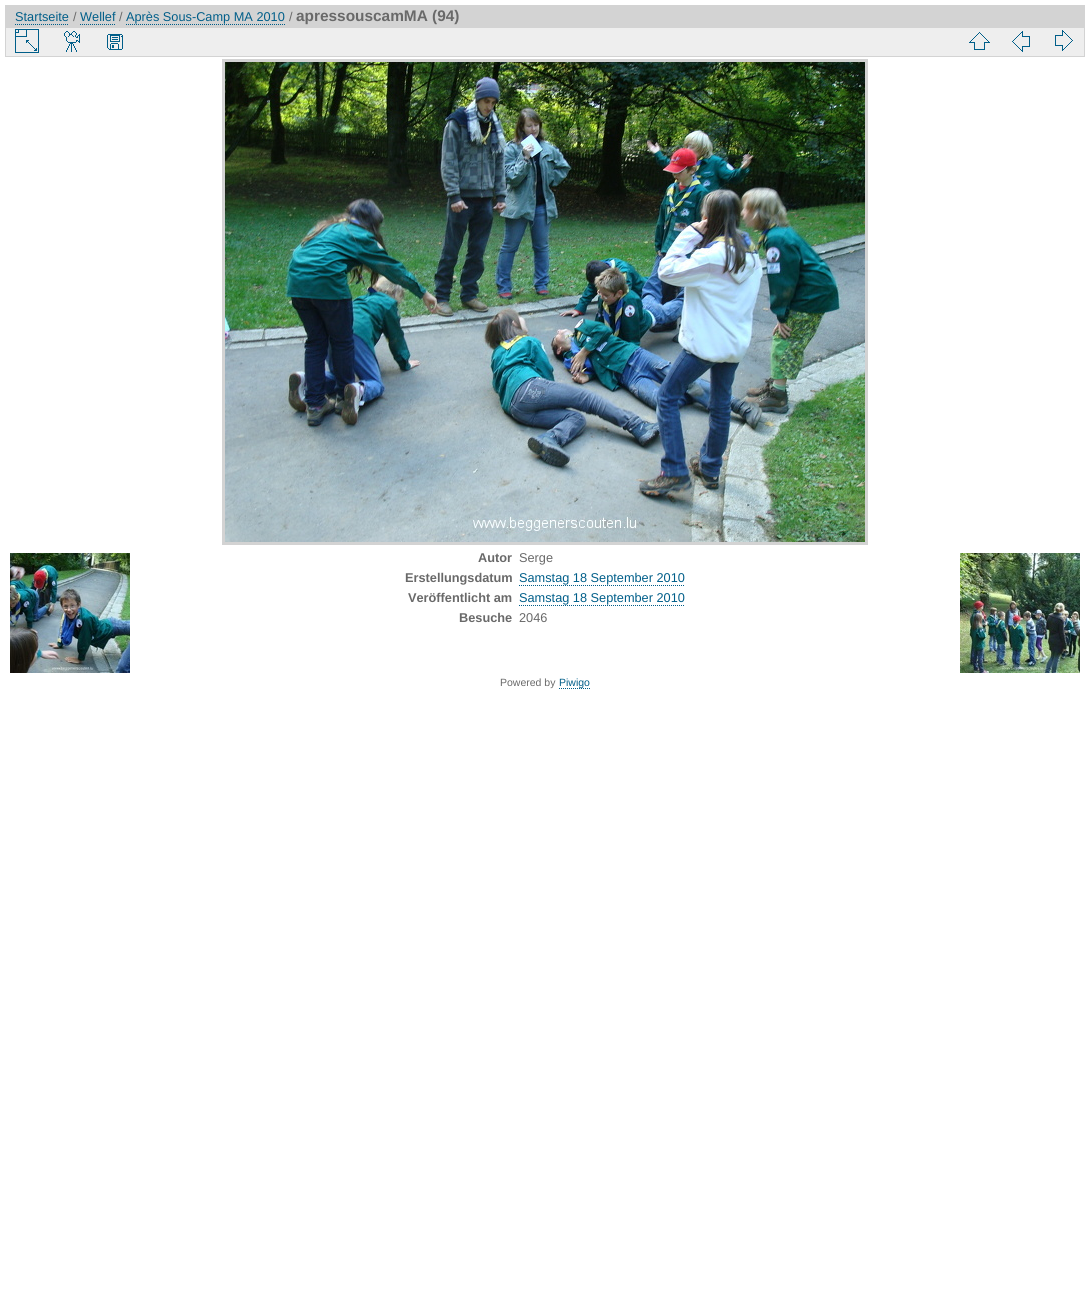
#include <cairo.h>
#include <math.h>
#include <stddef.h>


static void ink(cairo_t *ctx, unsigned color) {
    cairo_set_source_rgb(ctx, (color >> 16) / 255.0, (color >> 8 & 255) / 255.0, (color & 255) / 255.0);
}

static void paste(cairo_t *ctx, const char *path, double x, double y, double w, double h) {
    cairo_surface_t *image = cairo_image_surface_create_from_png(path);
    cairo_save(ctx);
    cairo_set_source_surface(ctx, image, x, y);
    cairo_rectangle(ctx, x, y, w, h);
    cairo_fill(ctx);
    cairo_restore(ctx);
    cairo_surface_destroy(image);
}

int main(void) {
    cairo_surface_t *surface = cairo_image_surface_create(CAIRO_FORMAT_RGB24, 1090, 1316);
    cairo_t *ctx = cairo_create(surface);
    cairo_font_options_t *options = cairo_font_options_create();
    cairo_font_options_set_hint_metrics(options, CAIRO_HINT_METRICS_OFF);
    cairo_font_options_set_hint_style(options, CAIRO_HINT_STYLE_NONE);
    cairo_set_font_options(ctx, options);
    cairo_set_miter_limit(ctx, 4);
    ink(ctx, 0xFFFFFF);
    cairo_paint(ctx);
    ink(ctx, 0xD3D3D3);
    cairo_rectangle(ctx, 5, 5, 1080, 22);
    cairo_fill(ctx);
    cairo_select_font_face(ctx, "Liberation Sans", CAIRO_FONT_SLANT_NORMAL, CAIRO_FONT_WEIGHT_NORMAL);
    cairo_set_font_size(ctx, 12.75);
    ink(ctx, 0x005E89);
    cairo_move_to(ctx, 15, 21);
    cairo_show_text(ctx, "Startseite");
    cairo_new_path(ctx);
    cairo_move_to(ctx, 15, 24.5);
    cairo_line_to(ctx, 69, 24.5);
    cairo_set_line_width(ctx, 1);
    cairo_set_dash(ctx, (double[]){1, 1}, 2, 0);
    cairo_stroke(ctx);
    ink(ctx, 0x696969);
    cairo_move_to(ctx, 73, 21);
    cairo_show_text(ctx, "/");
    ink(ctx, 0x005E89);
    cairo_move_to(ctx, 80, 21);
    cairo_show_text(ctx, "Wellef");
    cairo_new_path(ctx);
    cairo_move_to(ctx, 80, 24.5);
    cairo_line_to(ctx, 115, 24.5);
    cairo_stroke(ctx);
    ink(ctx, 0x696969);
    cairo_move_to(ctx, 119, 21);
    cairo_show_text(ctx, "/");
    ink(ctx, 0x005E89);
    cairo_move_to(ctx, 126, 21);
    cairo_show_text(ctx, "Après Sous-Camp MA 2010");
    cairo_new_path(ctx);
    cairo_move_to(ctx, 126, 24.5);
    cairo_line_to(ctx, 285, 24.5);
    cairo_stroke(ctx);
    ink(ctx, 0x696969);
    cairo_move_to(ctx, 289, 21);
    cairo_show_text(ctx, "/");
    cairo_select_font_face(ctx, "Liberation Sans", CAIRO_FONT_SLANT_NORMAL, CAIRO_FONT_WEIGHT_BOLD);
    cairo_set_font_size(ctx, 15.4);
    cairo_move_to(ctx, 296, 21);
    cairo_show_text(ctx, "apressouscamMA (94)");
    ink(ctx, 0xEEEEEE);
    cairo_rectangle(ctx, 5.5, 27.5, 1079, 29);
    cairo_fill_preserve(ctx);
    ink(ctx, 0xD3D3D3);
    cairo_set_dash(ctx, NULL, 0, 0);
    cairo_stroke(ctx);
    paste(ctx, "media/1.png", 15, 29, 24, 24);
    paste(ctx, "media/2.png", 64, 31, 16, 21);
    paste(ctx, "media/3.png", 107, 34, 16, 16);
    paste(ctx, "media/4.png", 969, 32, 21, 18);
    paste(ctx, "media/5.png", 1012, 31, 18, 21);
    paste(ctx, "media/6.png", 1055, 30, 18, 21);
    cairo_rectangle(ctx, 223.5, 60.5, 643, 483);
    cairo_set_line_width(ctx, 3);
    cairo_stroke(ctx);
    paste(ctx, "media/7.png", 225, 62, 640, 480);
    paste(ctx, "media/8.png", 10, 553, 120, 120);
    paste(ctx, "media/9.png", 960, 553, 120, 120);
    cairo_set_font_size(ctx, 12.75);
    ink(ctx, 0x696969);
    cairo_move_to(ctx, 478, 562);
    cairo_show_text(ctx, "Autor");
    cairo_select_font_face(ctx, "Liberation Sans", CAIRO_FONT_SLANT_NORMAL, CAIRO_FONT_WEIGHT_NORMAL);
    cairo_move_to(ctx, 519, 562);
    cairo_show_text(ctx, "Serge");
    cairo_select_font_face(ctx, "Liberation Sans", CAIRO_FONT_SLANT_NORMAL, CAIRO_FONT_WEIGHT_BOLD);
    cairo_move_to(ctx, 405, 582);
    cairo_show_text(ctx, "Erstellungsdatum");
    cairo_select_font_face(ctx, "Liberation Sans", CAIRO_FONT_SLANT_NORMAL, CAIRO_FONT_WEIGHT_NORMAL);
    ink(ctx, 0x005E89);
    cairo_move_to(ctx, 519, 582);
    cairo_show_text(ctx, "Samstag 18 September 2010");
    cairo_new_path(ctx);
    cairo_move_to(ctx, 519, 585.5);
    cairo_line_to(ctx, 685, 585.5);
    cairo_set_line_width(ctx, 1);
    cairo_set_dash(ctx, (double[]){1, 1}, 2, 0);
    cairo_stroke(ctx);
    cairo_select_font_face(ctx, "Liberation Sans", CAIRO_FONT_SLANT_NORMAL, CAIRO_FONT_WEIGHT_BOLD);
    ink(ctx, 0x696969);
    cairo_move_to(ctx, 408, 602);
    cairo_show_text(ctx, "Veröffentlicht am");
    cairo_select_font_face(ctx, "Liberation Sans", CAIRO_FONT_SLANT_NORMAL, CAIRO_FONT_WEIGHT_NORMAL);
    ink(ctx, 0x005E89);
    cairo_move_to(ctx, 519, 602);
    cairo_show_text(ctx, "Samstag 18 September 2010");
    cairo_new_path(ctx);
    cairo_move_to(ctx, 519, 605.5);
    cairo_line_to(ctx, 685, 605.5);
    cairo_stroke(ctx);
    cairo_select_font_face(ctx, "Liberation Sans", CAIRO_FONT_SLANT_NORMAL, CAIRO_FONT_WEIGHT_BOLD);
    ink(ctx, 0x696969);
    cairo_move_to(ctx, 459, 622);
    cairo_show_text(ctx, "Besuche");
    cairo_select_font_face(ctx, "Liberation Sans", CAIRO_FONT_SLANT_NORMAL, CAIRO_FONT_WEIGHT_NORMAL);
    cairo_move_to(ctx, 519, 622);
    cairo_show_text(ctx, "2046");
    cairo_set_font_size(ctx, 10.5);
    cairo_move_to(ctx, 500, 686);
    cairo_show_text(ctx, "Powered by");
    cairo_new_path(ctx);
    cairo_move_to(ctx, 559, 688.5);
    cairo_line_to(ctx, 590, 688.5);
    ink(ctx, 0x005E89);
    cairo_stroke(ctx);
    cairo_move_to(ctx, 559, 686);
    cairo_show_text(ctx, "Piwigo");
    cairo_surface_write_to_png(surface, "image.png");
    cairo_font_options_destroy(options);
    cairo_destroy(ctx);
    cairo_surface_destroy(surface);
    return 0;
}
